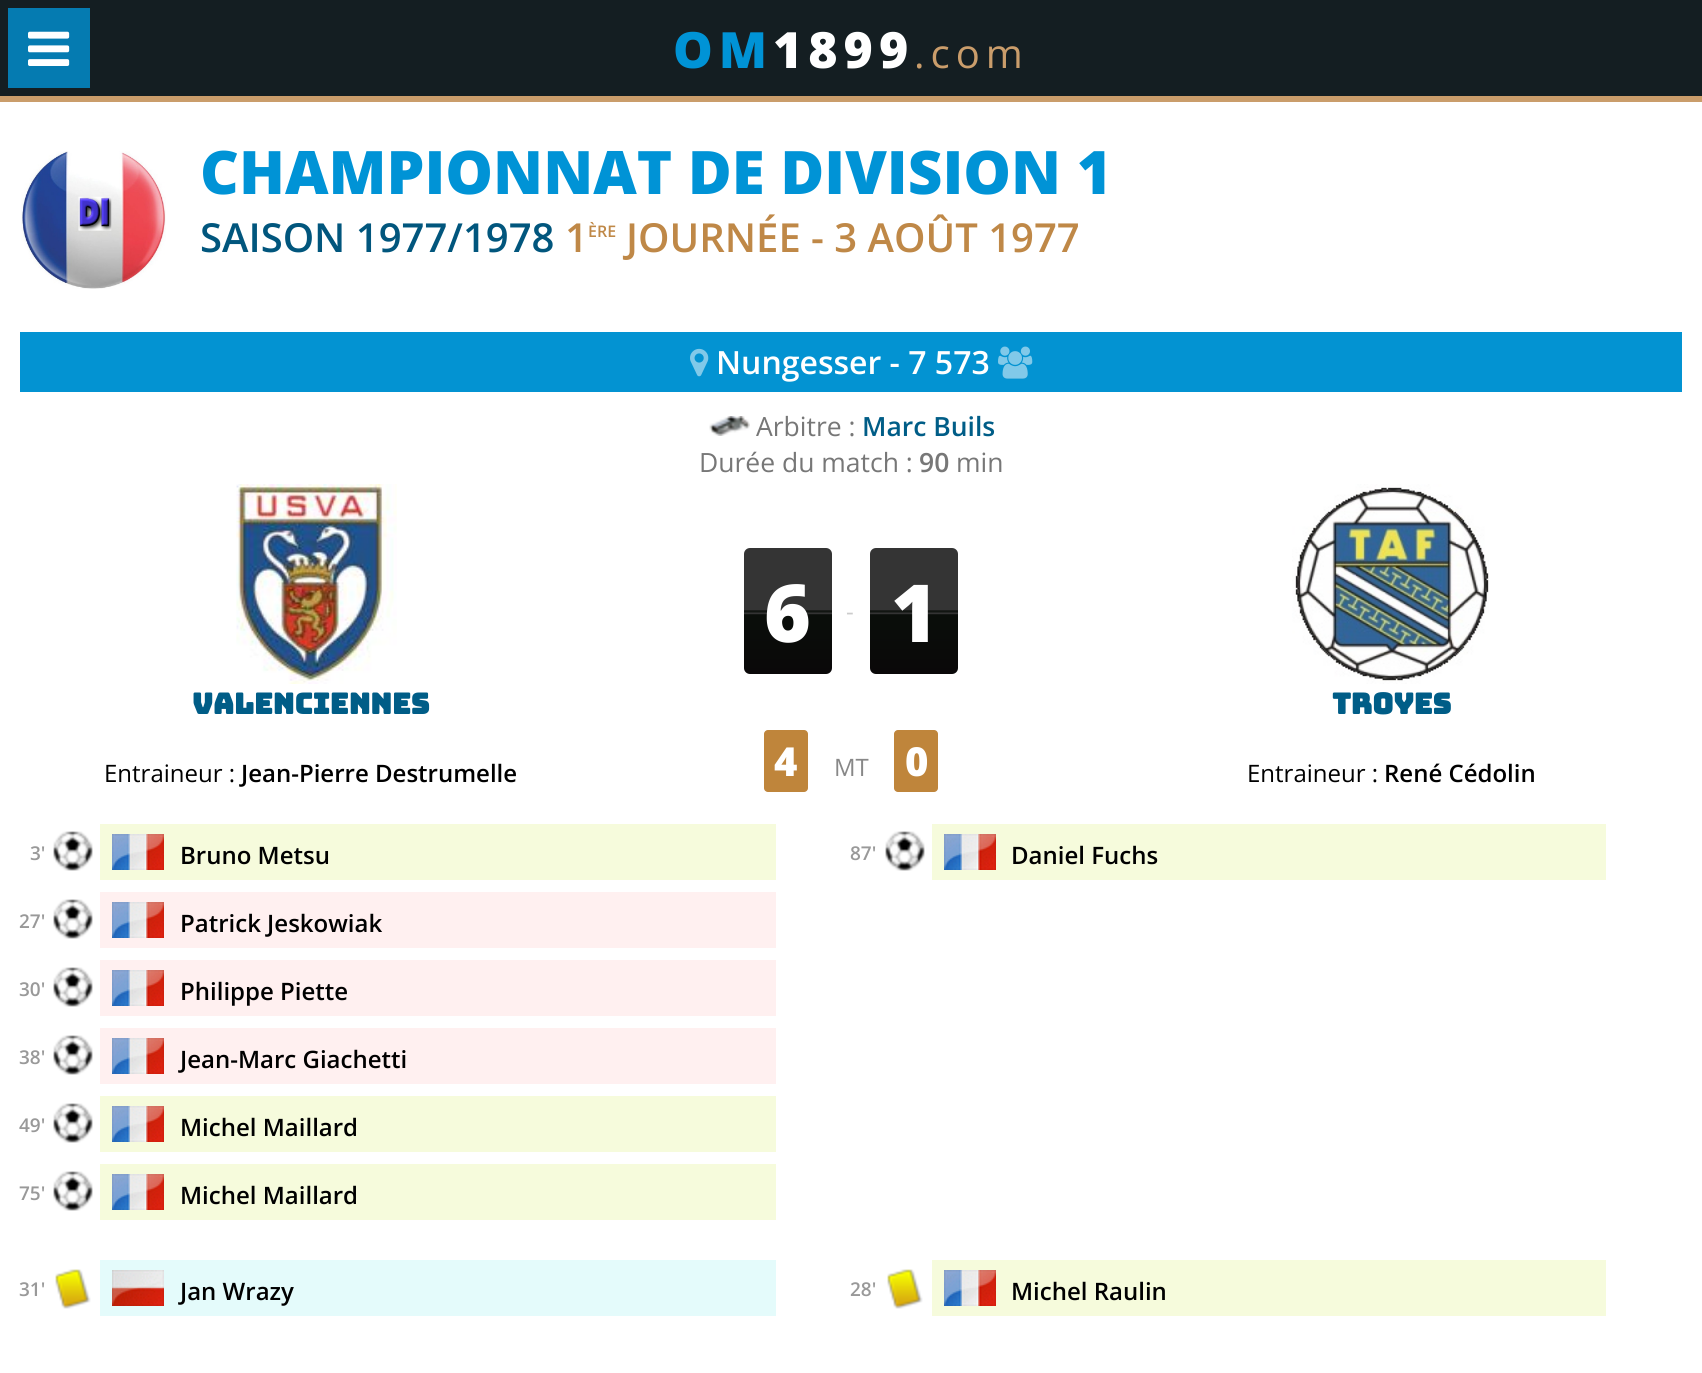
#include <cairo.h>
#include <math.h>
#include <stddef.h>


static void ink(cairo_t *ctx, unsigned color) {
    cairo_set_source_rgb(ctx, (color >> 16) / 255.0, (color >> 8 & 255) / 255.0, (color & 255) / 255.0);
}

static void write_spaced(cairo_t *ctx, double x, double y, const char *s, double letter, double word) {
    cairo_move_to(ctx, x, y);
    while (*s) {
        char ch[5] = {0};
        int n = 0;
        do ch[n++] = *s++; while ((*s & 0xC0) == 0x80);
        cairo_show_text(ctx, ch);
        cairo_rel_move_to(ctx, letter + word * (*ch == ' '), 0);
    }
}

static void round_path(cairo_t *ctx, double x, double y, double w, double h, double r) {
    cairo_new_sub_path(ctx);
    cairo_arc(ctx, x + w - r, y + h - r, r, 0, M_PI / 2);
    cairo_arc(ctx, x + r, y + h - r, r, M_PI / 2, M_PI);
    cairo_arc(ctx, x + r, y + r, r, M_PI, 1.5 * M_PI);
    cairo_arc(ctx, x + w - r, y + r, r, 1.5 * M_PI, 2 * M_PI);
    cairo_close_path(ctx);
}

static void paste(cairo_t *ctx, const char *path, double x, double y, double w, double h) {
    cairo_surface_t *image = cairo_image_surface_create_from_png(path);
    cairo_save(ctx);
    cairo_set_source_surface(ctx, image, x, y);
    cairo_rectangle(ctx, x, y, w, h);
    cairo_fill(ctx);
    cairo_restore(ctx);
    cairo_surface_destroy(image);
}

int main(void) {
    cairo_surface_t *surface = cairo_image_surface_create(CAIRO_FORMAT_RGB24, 1702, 1373);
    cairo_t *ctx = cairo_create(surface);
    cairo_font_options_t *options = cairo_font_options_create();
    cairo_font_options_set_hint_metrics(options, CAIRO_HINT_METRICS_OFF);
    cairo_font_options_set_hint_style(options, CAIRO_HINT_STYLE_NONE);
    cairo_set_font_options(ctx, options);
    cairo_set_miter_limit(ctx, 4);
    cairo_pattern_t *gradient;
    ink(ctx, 0x141E22);
    cairo_paint(ctx);
    ink(ctx, 0xCA9D6B);
    cairo_rectangle(ctx, 0, 96, 1702, 6);
    cairo_fill(ctx);
    ink(ctx, 0x057BB1);
    cairo_rectangle(ctx, 8, 8, 82, 80);
    cairo_fill(ctx);
    paste(ctx, "media/1.png", 28, 31, 42, 35);
    cairo_select_font_face(ctx, "Open Sans ExtraBold", CAIRO_FONT_SLANT_NORMAL, CAIRO_FONT_WEIGHT_NORMAL);
    cairo_set_font_size(ctx, 50);
    ink(ctx, 0x0093D6);
    write_spaced(ctx, 673, 68, "OM", 6, 0);
    ink(ctx, 0xFFFFFF);
    write_spaced(ctx, 773, 68, "1899", 6, 0);
    cairo_select_font_face(ctx, "Open Sans", CAIRO_FONT_SLANT_NORMAL, CAIRO_FONT_WEIGHT_NORMAL);
    cairo_set_font_size(ctx, 40);
    ink(ctx, 0xCA9D6B);
    write_spaced(ctx, 914, 68, ".com", 6, 0);
    ink(ctx, 0xFFFFFF);
    cairo_rectangle(ctx, 0, 102, 1702, 1271);
    cairo_fill(ctx);
    paste(ctx, "media/2.png", 21, 151, 145, 138);
    cairo_select_font_face(ctx, "Open Sans ExtraBold", CAIRO_FONT_SLANT_NORMAL, CAIRO_FONT_WEIGHT_NORMAL);
    cairo_set_font_size(ctx, 60);
    ink(ctx, 0x0093D6);
    cairo_move_to(ctx, 200, 194);
    cairo_show_text(ctx, "CHAMPIONNAT DE DIVISION 1");
    cairo_select_font_face(ctx, "Open Sans SemiBold", CAIRO_FONT_SLANT_NORMAL, CAIRO_FONT_WEIGHT_NORMAL);
    cairo_set_font_size(ctx, 40);
    ink(ctx, 0x01567D);
    cairo_move_to(ctx, 200, 252);
    cairo_show_text(ctx, "SAISON 1977/1978");
    ink(ctx, 0xBF8847);
    cairo_move_to(ctx, 565, 252);
    cairo_show_text(ctx, "1");
    cairo_set_font_size(ctx, 16);
    cairo_move_to(ctx, 588, 237);
    cairo_show_text(ctx, "ÈRE");
    cairo_set_font_size(ctx, 40);
    cairo_move_to(ctx, 626, 252);
    cairo_show_text(ctx, "JOURNÉE - 3 AOÛT 1977");
    ink(ctx, 0x0393D2);
    cairo_rectangle(ctx, 20, 332, 1662, 60);
    cairo_fill(ctx);
    paste(ctx, "media/3.png", 690, 348, 19, 29);
    cairo_set_font_size(ctx, 32);
    ink(ctx, 0xFFFFFF);
    cairo_move_to(ctx, 716, 374);
    cairo_show_text(ctx, "Nungesser - 7 573");
    paste(ctx, "media/4.png", 998, 346, 35, 33);
    paste(ctx, "media/5.png", 709, 416, 41, 20);
    cairo_select_font_face(ctx, "Open Sans", CAIRO_FONT_SLANT_NORMAL, CAIRO_FONT_WEIGHT_NORMAL);
    cairo_set_font_size(ctx, 26.5);
    ink(ctx, 0x777777);
    cairo_move_to(ctx, 756, 436);
    cairo_show_text(ctx, "Arbitre :");
    cairo_select_font_face(ctx, "Open Sans SemiBold", CAIRO_FONT_SLANT_NORMAL, CAIRO_FONT_WEIGHT_NORMAL);
    ink(ctx, 0x005D87);
    cairo_move_to(ctx, 862, 436);
    cairo_show_text(ctx, "Marc Buils");
    cairo_select_font_face(ctx, "Open Sans", CAIRO_FONT_SLANT_NORMAL, CAIRO_FONT_WEIGHT_NORMAL);
    ink(ctx, 0x777777);
    cairo_move_to(ctx, 699, 472);
    cairo_show_text(ctx, "Durée du match :");
    cairo_select_font_face(ctx, "Open Sans SemiBold", CAIRO_FONT_SLANT_NORMAL, CAIRO_FONT_WEIGHT_NORMAL);
    cairo_move_to(ctx, 919, 472);
    cairo_show_text(ctx, "90");
    cairo_select_font_face(ctx, "Open Sans", CAIRO_FONT_SLANT_NORMAL, CAIRO_FONT_WEIGHT_NORMAL);
    cairo_move_to(ctx, 956, 472);
    cairo_show_text(ctx, "min");
    paste(ctx, "media/6.png", 236, 484, 161, 200);
    cairo_select_font_face(ctx, "Bungee", CAIRO_FONT_SLANT_NORMAL, CAIRO_FONT_WEIGHT_BOLD);
    cairo_set_font_size(ctx, 28.75);
    ink(ctx, 0x005D87);
    cairo_move_to(ctx, 192, 714);
    cairo_show_text(ctx, "Valenciennes");
    cairo_select_font_face(ctx, "Open Sans", CAIRO_FONT_SLANT_NORMAL, CAIRO_FONT_WEIGHT_NORMAL);
    cairo_set_font_size(ctx, 24);
    ink(ctx, 0x000000);
    cairo_move_to(ctx, 104, 782);
    cairo_show_text(ctx, "Entraineur :");
    cairo_select_font_face(ctx, "Open Sans SemiBold", CAIRO_FONT_SLANT_NORMAL, CAIRO_FONT_WEIGHT_NORMAL);
    cairo_move_to(ctx, 241, 782);
    cairo_show_text(ctx, "Jean-Pierre Destrumelle");
    gradient = cairo_pattern_create_linear(788, 548, 788, 674);
    cairo_pattern_add_color_stop_rgba(gradient, 0, 0.204, 0.204, 0.204, 1);
    cairo_pattern_add_color_stop_rgba(gradient, 0.49, 0.204, 0.204, 0.204, 1);
    cairo_pattern_add_color_stop_rgba(gradient, 0.5, 0.039, 0.055, 0.039, 1);
    cairo_pattern_add_color_stop_rgba(gradient, 0.52, 0.204, 0.204, 0.204, 1);
    cairo_pattern_add_color_stop_rgba(gradient, 0.53, 0.039, 0.055, 0.039, 1);
    cairo_pattern_add_color_stop_rgba(gradient, 1, 0.039, 0.031, 0.035, 1);
    cairo_set_source(ctx, gradient);
    cairo_pattern_destroy(gradient);
    round_path(ctx, 744, 548, 88, 126, 6);
    cairo_fill(ctx);
    cairo_select_font_face(ctx, "Open Sans ExtraBold", CAIRO_FONT_SLANT_NORMAL, CAIRO_FONT_WEIGHT_NORMAL);
    cairo_set_font_size(ctx, 80);
    ink(ctx, 0xFFFFFF);
    cairo_move_to(ctx, 764, 642);
    cairo_show_text(ctx, "6");
    cairo_select_font_face(ctx, "Open Sans", CAIRO_FONT_SLANT_NORMAL, CAIRO_FONT_WEIGHT_NORMAL);
    cairo_set_font_size(ctx, 24);
    ink(ctx, 0xCCCCCC);
    cairo_move_to(ctx, 846, 620);
    cairo_show_text(ctx, "-");
    gradient = cairo_pattern_create_linear(914, 548, 914, 674);
    cairo_pattern_add_color_stop_rgba(gradient, 0, 0.204, 0.204, 0.204, 1);
    cairo_pattern_add_color_stop_rgba(gradient, 0.49, 0.204, 0.204, 0.204, 1);
    cairo_pattern_add_color_stop_rgba(gradient, 0.5, 0.039, 0.055, 0.039, 1);
    cairo_pattern_add_color_stop_rgba(gradient, 0.52, 0.204, 0.204, 0.204, 1);
    cairo_pattern_add_color_stop_rgba(gradient, 0.53, 0.039, 0.055, 0.039, 1);
    cairo_pattern_add_color_stop_rgba(gradient, 1, 0.039, 0.031, 0.035, 1);
    cairo_set_source(ctx, gradient);
    cairo_pattern_destroy(gradient);
    round_path(ctx, 870, 548, 88, 126, 6);
    cairo_fill(ctx);
    cairo_select_font_face(ctx, "Open Sans ExtraBold", CAIRO_FONT_SLANT_NORMAL, CAIRO_FONT_WEIGHT_NORMAL);
    cairo_set_font_size(ctx, 80);
    ink(ctx, 0xFFFFFF);
    cairo_move_to(ctx, 891, 642);
    cairo_show_text(ctx, "1");
    ink(ctx, 0xBF853B);
    round_path(ctx, 764, 730, 44, 62, 4);
    cairo_fill(ctx);
    cairo_set_font_size(ctx, 40);
    ink(ctx, 0xFFFFFF);
    cairo_move_to(ctx, 774, 776);
    cairo_show_text(ctx, "4");
    cairo_select_font_face(ctx, "Open Sans", CAIRO_FONT_SLANT_NORMAL, CAIRO_FONT_WEIGHT_NORMAL);
    cairo_set_font_size(ctx, 24);
    ink(ctx, 0x888888);
    cairo_move_to(ctx, 834, 776);
    cairo_show_text(ctx, "MT");
    ink(ctx, 0xBF853B);
    round_path(ctx, 894, 730, 44, 62, 4);
    cairo_fill(ctx);
    cairo_select_font_face(ctx, "Open Sans ExtraBold", CAIRO_FONT_SLANT_NORMAL, CAIRO_FONT_WEIGHT_NORMAL);
    cairo_set_font_size(ctx, 40);
    ink(ctx, 0xFFFFFF);
    cairo_move_to(ctx, 905, 776);
    cairo_show_text(ctx, "0");
    paste(ctx, "media/7.png", 1292, 484, 197, 200);
    cairo_select_font_face(ctx, "Bungee", CAIRO_FONT_SLANT_NORMAL, CAIRO_FONT_WEIGHT_BOLD);
    cairo_set_font_size(ctx, 28.75);
    ink(ctx, 0x005D87);
    cairo_move_to(ctx, 1332, 714);
    cairo_show_text(ctx, "Troyes");
    cairo_select_font_face(ctx, "Open Sans", CAIRO_FONT_SLANT_NORMAL, CAIRO_FONT_WEIGHT_NORMAL);
    cairo_set_font_size(ctx, 24);
    ink(ctx, 0x000000);
    cairo_move_to(ctx, 1247, 782);
    cairo_show_text(ctx, "Entraineur :");
    cairo_select_font_face(ctx, "Open Sans SemiBold", CAIRO_FONT_SLANT_NORMAL, CAIRO_FONT_WEIGHT_NORMAL);
    cairo_move_to(ctx, 1384, 782);
    cairo_show_text(ctx, "René Cédolin");
    ink(ctx, 0xF6FBDC);
    cairo_rectangle(ctx, 100, 824, 676, 56);
    cairo_fill(ctx);
    cairo_set_font_size(ctx, 19);
    ink(ctx, 0x999999);
    cairo_move_to(ctx, 30, 860);
    cairo_show_text(ctx, "3'");
    paste(ctx, "media/8.png", 53, 831, 40, 40);
    paste(ctx, "media/9.png", 112, 834, 52, 36);
    cairo_set_font_size(ctx, 24);
    ink(ctx, 0x000000);
    cairo_move_to(ctx, 180, 864);
    cairo_show_text(ctx, "Bruno Metsu");
    ink(ctx, 0xFFF0F0);
    cairo_rectangle(ctx, 100, 892, 676, 56);
    cairo_fill(ctx);
    cairo_set_font_size(ctx, 19);
    ink(ctx, 0x999999);
    cairo_move_to(ctx, 19, 928);
    cairo_show_text(ctx, "27'");
    paste(ctx, "media/8.png", 53, 899, 40, 40);
    paste(ctx, "media/9.png", 112, 902, 52, 36);
    cairo_set_font_size(ctx, 24);
    ink(ctx, 0x000000);
    cairo_move_to(ctx, 180, 932);
    cairo_show_text(ctx, "Patrick Jeskowiak");
    ink(ctx, 0xFFF0F0);
    cairo_rectangle(ctx, 100, 960, 676, 56);
    cairo_fill(ctx);
    cairo_set_font_size(ctx, 19);
    ink(ctx, 0x999999);
    cairo_move_to(ctx, 19, 996);
    cairo_show_text(ctx, "30'");
    paste(ctx, "media/8.png", 53, 967, 40, 40);
    paste(ctx, "media/9.png", 112, 970, 52, 36);
    cairo_set_font_size(ctx, 24);
    ink(ctx, 0x000000);
    cairo_move_to(ctx, 180, 1000);
    cairo_show_text(ctx, "Philippe Piette");
    ink(ctx, 0xFFF0F0);
    cairo_rectangle(ctx, 100, 1028, 676, 56);
    cairo_fill(ctx);
    cairo_set_font_size(ctx, 19);
    ink(ctx, 0x999999);
    cairo_move_to(ctx, 19, 1064);
    cairo_show_text(ctx, "38'");
    paste(ctx, "media/8.png", 53, 1035, 40, 40);
    paste(ctx, "media/9.png", 112, 1038, 52, 36);
    cairo_set_font_size(ctx, 24);
    ink(ctx, 0x000000);
    cairo_move_to(ctx, 180, 1068);
    cairo_show_text(ctx, "Jean-Marc Giachetti");
    ink(ctx, 0xF6FBDC);
    cairo_rectangle(ctx, 100, 1096, 676, 56);
    cairo_fill(ctx);
    cairo_set_font_size(ctx, 19);
    ink(ctx, 0x999999);
    cairo_move_to(ctx, 19, 1132);
    cairo_show_text(ctx, "49'");
    paste(ctx, "media/8.png", 53, 1103, 40, 40);
    paste(ctx, "media/9.png", 112, 1106, 52, 36);
    cairo_set_font_size(ctx, 24);
    ink(ctx, 0x000000);
    cairo_move_to(ctx, 180, 1136);
    cairo_show_text(ctx, "Michel Maillard");
    ink(ctx, 0xF6FBDC);
    cairo_rectangle(ctx, 100, 1164, 676, 56);
    cairo_fill(ctx);
    cairo_set_font_size(ctx, 19);
    ink(ctx, 0x999999);
    cairo_move_to(ctx, 19, 1200);
    cairo_show_text(ctx, "75'");
    paste(ctx, "media/8.png", 53, 1171, 40, 40);
    paste(ctx, "media/9.png", 112, 1174, 52, 36);
    cairo_set_font_size(ctx, 24);
    ink(ctx, 0x000000);
    cairo_move_to(ctx, 180, 1204);
    cairo_show_text(ctx, "Michel Maillard");
    ink(ctx, 0xF6FBDC);
    cairo_rectangle(ctx, 932, 824, 674, 56);
    cairo_fill(ctx);
    cairo_set_font_size(ctx, 19);
    ink(ctx, 0x999999);
    cairo_move_to(ctx, 850, 860);
    cairo_show_text(ctx, "87'");
    paste(ctx, "media/8.png", 885, 831, 40, 40);
    paste(ctx, "media/9.png", 944, 834, 52, 36);
    cairo_set_font_size(ctx, 24);
    ink(ctx, 0x000000);
    cairo_move_to(ctx, 1011, 864);
    cairo_show_text(ctx, "Daniel Fuchs");
    ink(ctx, 0xE4FBFB);
    cairo_rectangle(ctx, 100, 1260, 676, 56);
    cairo_fill(ctx);
    cairo_set_font_size(ctx, 19);
    ink(ctx, 0x999999);
    cairo_move_to(ctx, 19, 1296);
    cairo_show_text(ctx, "31'");
    paste(ctx, "media/10.png", 55, 1269, 36, 40);
    paste(ctx, "media/11.png", 112, 1270, 52, 36);
    cairo_set_font_size(ctx, 24);
    ink(ctx, 0x000000);
    cairo_move_to(ctx, 180, 1300);
    cairo_show_text(ctx, "Jan Wrazy");
    ink(ctx, 0xF6FBDC);
    cairo_rectangle(ctx, 932, 1260, 674, 56);
    cairo_fill(ctx);
    cairo_set_font_size(ctx, 19);
    ink(ctx, 0x999999);
    cairo_move_to(ctx, 850, 1296);
    cairo_show_text(ctx, "28'");
    paste(ctx, "media/10.png", 887, 1269, 36, 40);
    paste(ctx, "media/9.png", 944, 1270, 52, 36);
    cairo_set_font_size(ctx, 24);
    ink(ctx, 0x000000);
    cairo_move_to(ctx, 1011, 1300);
    cairo_show_text(ctx, "Michel Raulin");
    cairo_surface_write_to_png(surface, "image.png");
    cairo_font_options_destroy(options);
    cairo_destroy(ctx);
    cairo_surface_destroy(surface);
    return 0;
}
